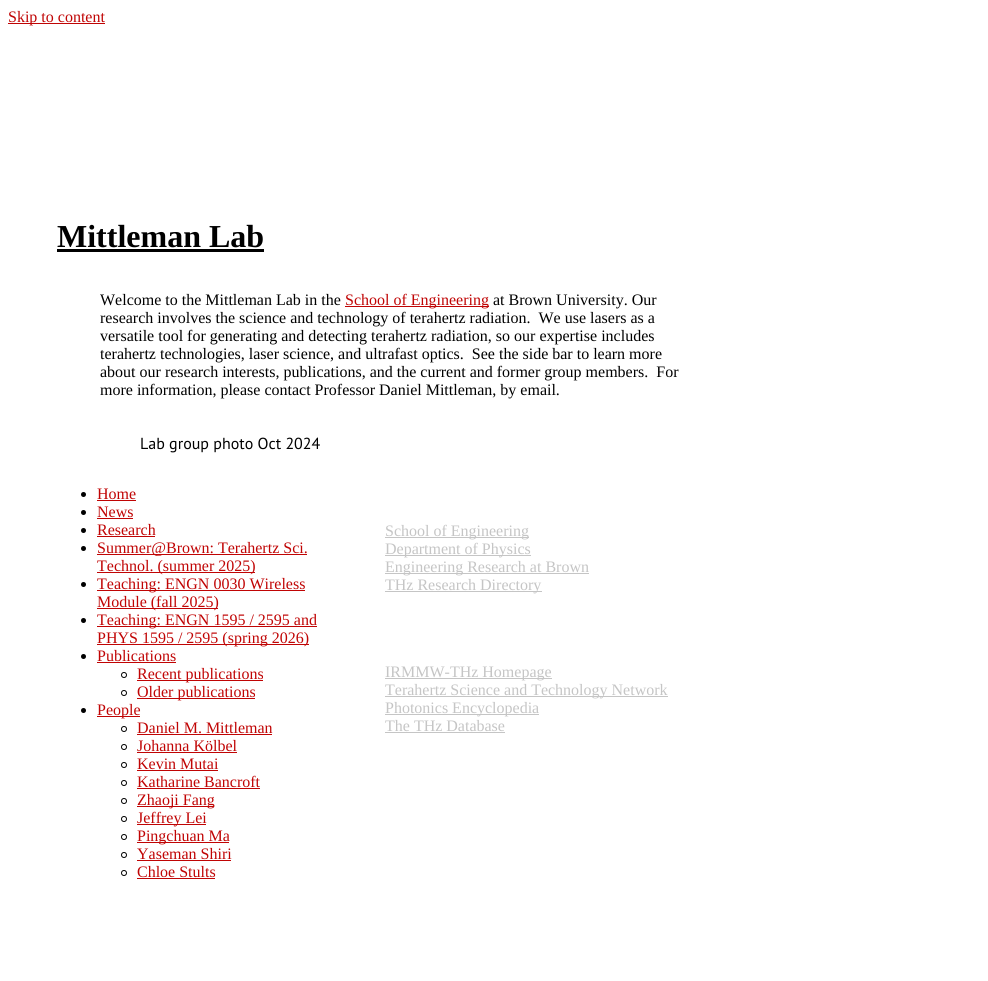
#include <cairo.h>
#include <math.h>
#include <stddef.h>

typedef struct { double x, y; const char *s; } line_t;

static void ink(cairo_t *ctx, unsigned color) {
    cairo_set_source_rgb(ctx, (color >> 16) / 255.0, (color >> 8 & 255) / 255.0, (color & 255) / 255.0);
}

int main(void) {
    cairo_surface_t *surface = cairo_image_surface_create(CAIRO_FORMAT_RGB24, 988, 981);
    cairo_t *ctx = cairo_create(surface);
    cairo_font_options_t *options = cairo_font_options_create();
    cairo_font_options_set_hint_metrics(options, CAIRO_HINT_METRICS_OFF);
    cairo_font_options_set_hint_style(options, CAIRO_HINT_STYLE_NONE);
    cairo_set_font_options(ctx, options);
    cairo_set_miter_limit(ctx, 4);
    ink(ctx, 0xFFFFFF);
    cairo_paint(ctx);
    ink(ctx, 0xC00404);
    cairo_rectangle(ctx, 8, 23, 97, 1);
    cairo_fill(ctx);
    cairo_select_font_face(ctx, "Liberation Serif", CAIRO_FONT_SLANT_NORMAL, CAIRO_FONT_WEIGHT_NORMAL);
    cairo_set_font_size(ctx, 16);
    cairo_move_to(ctx, 8, 22);
    cairo_show_text(ctx, "Skip to content");
    cairo_select_font_face(ctx, "Liberation Serif", CAIRO_FONT_SLANT_NORMAL, CAIRO_FONT_WEIGHT_BOLD);
    cairo_set_font_size(ctx, 32);
    ink(ctx, 0x000000);
    cairo_move_to(ctx, 57, 247);
    cairo_show_text(ctx, "Mittleman Lab");
    cairo_rectangle(ctx, 57, 249, 207, 3);
    cairo_fill(ctx);
    cairo_select_font_face(ctx, "Liberation Serif", CAIRO_FONT_SLANT_NORMAL, CAIRO_FONT_WEIGHT_NORMAL);
    cairo_set_font_size(ctx, 16);
    cairo_move_to(ctx, 100, 305);
    cairo_show_text(ctx, "Welcome to the Mittleman Lab in the");
    ink(ctx, 0xC00404);
    cairo_rectangle(ctx, 345, 306, 144, 1);
    cairo_fill(ctx);
    cairo_move_to(ctx, 345, 305);
    cairo_show_text(ctx, "School of Engineering");
    ink(ctx, 0x000000);
    {
        static const line_t items[] = {
            {493, 305, "at Brown University. Our"},
            {100, 323, "research involves the science and technology of terahertz radiation.  We use lasers as a"},
            {100, 341, "versatile tool for generating and detecting terahertz radiation, so our expertise includes"},
            {100, 359, "terahertz technologies, laser science, and ultrafast optics.  See the side bar to learn more"},
            {100, 377, "about our research interests, publications, and the current and former group members.  For"},
            {100, 395, "more information, please contact Professor Daniel Mittleman, by email."},
        };
        for (size_t i = 0; i < sizeof items / sizeof *items; i++) {
            cairo_move_to(ctx, items[i].x, items[i].y);
            cairo_show_text(ctx, items[i].s);
        }
    }
    cairo_select_font_face(ctx, "PT Sans", CAIRO_FONT_SLANT_NORMAL, CAIRO_FONT_WEIGHT_NORMAL);
    cairo_move_to(ctx, 140, 449);
    cairo_show_text(ctx, "Lab group photo Oct 2024");
    cairo_new_path(ctx);
    cairo_arc(ctx, 83.5, 494.5, 2.5, 0, 2 * M_PI);
    cairo_fill(ctx);
    cairo_select_font_face(ctx, "Liberation Serif", CAIRO_FONT_SLANT_NORMAL, CAIRO_FONT_WEIGHT_NORMAL);
    ink(ctx, 0xC00404);
    cairo_move_to(ctx, 97, 499);
    cairo_show_text(ctx, "Home");
    cairo_rectangle(ctx, 97, 500, 39, 1);
    cairo_fill(ctx);
    ink(ctx, 0x000000);
    cairo_arc(ctx, 83.5, 512.5, 2.5, 0, 2 * M_PI);
    cairo_fill(ctx);
    ink(ctx, 0xC00404);
    cairo_move_to(ctx, 97, 517);
    cairo_show_text(ctx, "News");
    cairo_rectangle(ctx, 97, 518, 36, 1);
    cairo_fill(ctx);
    ink(ctx, 0x000000);
    cairo_arc(ctx, 83.5, 530.5, 2.5, 0, 2 * M_PI);
    cairo_fill(ctx);
    ink(ctx, 0xC00404);
    cairo_move_to(ctx, 97, 535);
    cairo_show_text(ctx, "Research");
    cairo_rectangle(ctx, 97, 536, 58, 1);
    cairo_fill(ctx);
    ink(ctx, 0x000000);
    cairo_arc(ctx, 83.5, 548.5, 2.5, 0, 2 * M_PI);
    cairo_fill(ctx);
    ink(ctx, 0xC00404);
    cairo_rectangle(ctx, 97, 554, 210, 1);
    cairo_fill(ctx);
    cairo_move_to(ctx, 97, 553);
    cairo_show_text(ctx, "Summer@Brown: Terahertz Sci.");
    cairo_rectangle(ctx, 97, 572, 158, 1);
    cairo_fill(ctx);
    cairo_move_to(ctx, 97, 571);
    cairo_show_text(ctx, "Technol. (summer 2025)");
    ink(ctx, 0x000000);
    cairo_new_path(ctx);
    cairo_arc(ctx, 83.5, 584.5, 2.5, 0, 2 * M_PI);
    cairo_fill(ctx);
    ink(ctx, 0xC00404);
    cairo_rectangle(ctx, 97, 590, 208, 1);
    cairo_fill(ctx);
    cairo_move_to(ctx, 97, 589);
    cairo_show_text(ctx, "Teaching: ENGN 0030 Wireless");
    cairo_rectangle(ctx, 97, 608, 121, 1);
    cairo_fill(ctx);
    cairo_move_to(ctx, 97, 607);
    cairo_show_text(ctx, "Module (fall 2025)");
    ink(ctx, 0x000000);
    cairo_new_path(ctx);
    cairo_arc(ctx, 83.5, 620.5, 2.5, 0, 2 * M_PI);
    cairo_fill(ctx);
    ink(ctx, 0xC00404);
    cairo_rectangle(ctx, 97, 626, 220, 1);
    cairo_fill(ctx);
    cairo_move_to(ctx, 97, 625);
    cairo_show_text(ctx, "Teaching: ENGN 1595 / 2595 and");
    cairo_rectangle(ctx, 97, 644, 212, 1);
    cairo_fill(ctx);
    cairo_move_to(ctx, 97, 643);
    cairo_show_text(ctx, "PHYS 1595 / 2595 (spring 2026)");
    ink(ctx, 0x000000);
    cairo_new_path(ctx);
    cairo_arc(ctx, 83.5, 656.5, 2.5, 0, 2 * M_PI);
    cairo_fill(ctx);
    ink(ctx, 0xC00404);
    cairo_move_to(ctx, 97, 661);
    cairo_show_text(ctx, "Publications");
    cairo_rectangle(ctx, 97, 662, 79, 1);
    cairo_fill(ctx);
    cairo_arc(ctx, 124, 675, 2.5, 0, 2 * M_PI);
    ink(ctx, 0x000000);
    cairo_set_line_width(ctx, 1);
    cairo_stroke(ctx);
    ink(ctx, 0xC00404);
    cairo_rectangle(ctx, 137, 680, 126, 1);
    cairo_fill(ctx);
    cairo_move_to(ctx, 137, 679);
    cairo_show_text(ctx, "Recent publications");
    cairo_new_path(ctx);
    cairo_arc(ctx, 124, 693, 2.5, 0, 2 * M_PI);
    ink(ctx, 0x000000);
    cairo_stroke(ctx);
    ink(ctx, 0xC00404);
    cairo_rectangle(ctx, 137, 698, 118, 1);
    cairo_fill(ctx);
    cairo_move_to(ctx, 137, 697);
    cairo_show_text(ctx, "Older publications");
    ink(ctx, 0x000000);
    cairo_new_path(ctx);
    cairo_arc(ctx, 83.5, 710.5, 2.5, 0, 2 * M_PI);
    cairo_fill(ctx);
    ink(ctx, 0xC00404);
    cairo_rectangle(ctx, 97, 716, 43, 1);
    cairo_fill(ctx);
    cairo_move_to(ctx, 97, 715);
    cairo_show_text(ctx, "People");
    cairo_new_path(ctx);
    cairo_arc(ctx, 124, 729, 2.5, 0, 2 * M_PI);
    ink(ctx, 0x000000);
    cairo_stroke(ctx);
    ink(ctx, 0xC00404);
    cairo_move_to(ctx, 137, 733);
    cairo_show_text(ctx, "Daniel M. Mittleman");
    cairo_rectangle(ctx, 137, 734, 135, 1);
    cairo_fill(ctx);
    cairo_arc(ctx, 124, 747, 2.5, 0, 2 * M_PI);
    ink(ctx, 0x000000);
    cairo_stroke(ctx);
    ink(ctx, 0xC00404);
    cairo_move_to(ctx, 137, 751);
    cairo_show_text(ctx, "Johanna Kölbel");
    cairo_rectangle(ctx, 137, 752, 100, 1);
    cairo_fill(ctx);
    cairo_arc(ctx, 124, 765, 2.5, 0, 2 * M_PI);
    ink(ctx, 0x000000);
    cairo_stroke(ctx);
    ink(ctx, 0xC00404);
    cairo_move_to(ctx, 137, 769);
    cairo_show_text(ctx, "Kevin Mutai");
    cairo_rectangle(ctx, 137, 770, 81, 1);
    cairo_fill(ctx);
    cairo_arc(ctx, 124, 783, 2.5, 0, 2 * M_PI);
    ink(ctx, 0x000000);
    cairo_stroke(ctx);
    ink(ctx, 0xC00404);
    cairo_move_to(ctx, 137, 787);
    cairo_show_text(ctx, "Katharine Bancroft");
    cairo_rectangle(ctx, 137, 788, 123, 1);
    cairo_fill(ctx);
    cairo_arc(ctx, 124, 801, 2.5, 0, 2 * M_PI);
    ink(ctx, 0x000000);
    cairo_stroke(ctx);
    ink(ctx, 0xC00404);
    cairo_rectangle(ctx, 137, 806, 77, 1);
    cairo_fill(ctx);
    cairo_move_to(ctx, 137, 805);
    cairo_show_text(ctx, "Zhaoji Fang");
    cairo_new_path(ctx);
    cairo_arc(ctx, 124, 819, 2.5, 0, 2 * M_PI);
    ink(ctx, 0x000000);
    cairo_stroke(ctx);
    ink(ctx, 0xC00404);
    cairo_rectangle(ctx, 137, 824, 69, 1);
    cairo_fill(ctx);
    cairo_move_to(ctx, 137, 823);
    cairo_show_text(ctx, "Jeffrey Lei");
    cairo_new_path(ctx);
    cairo_arc(ctx, 124, 837, 2.5, 0, 2 * M_PI);
    ink(ctx, 0x000000);
    cairo_stroke(ctx);
    ink(ctx, 0xC00404);
    cairo_rectangle(ctx, 137, 842, 92, 1);
    cairo_fill(ctx);
    cairo_move_to(ctx, 137, 841);
    cairo_show_text(ctx, "Pingchuan Ma");
    cairo_new_path(ctx);
    cairo_arc(ctx, 124, 855, 2.5, 0, 2 * M_PI);
    ink(ctx, 0x000000);
    cairo_stroke(ctx);
    ink(ctx, 0xC00404);
    cairo_move_to(ctx, 137, 859);
    cairo_show_text(ctx, "Yaseman Shiri");
    cairo_rectangle(ctx, 137, 860, 94, 1);
    cairo_fill(ctx);
    cairo_arc(ctx, 124, 873, 2.5, 0, 2 * M_PI);
    ink(ctx, 0x000000);
    cairo_stroke(ctx);
    ink(ctx, 0xC00404);
    cairo_move_to(ctx, 137, 877);
    cairo_show_text(ctx, "Chloe Stults");
    cairo_rectangle(ctx, 137, 878, 78, 1);
    cairo_fill(ctx);
    ink(ctx, 0xC5C5C5);
    cairo_rectangle(ctx, 385, 537, 144, 1);
    cairo_fill(ctx);
    cairo_move_to(ctx, 385, 536);
    cairo_show_text(ctx, "School of Engineering");
    cairo_rectangle(ctx, 385, 555, 146, 1);
    cairo_fill(ctx);
    cairo_move_to(ctx, 385, 554);
    cairo_show_text(ctx, "Department of Physics");
    cairo_rectangle(ctx, 385, 573, 204, 1);
    cairo_fill(ctx);
    cairo_move_to(ctx, 385, 572);
    cairo_show_text(ctx, "Engineering Research at Brown");
    cairo_rectangle(ctx, 385, 591, 157, 1);
    cairo_fill(ctx);
    cairo_move_to(ctx, 385, 590);
    cairo_show_text(ctx, "THz Research Directory");
    cairo_rectangle(ctx, 385, 678, 167, 1);
    cairo_fill(ctx);
    cairo_move_to(ctx, 385, 677);
    cairo_show_text(ctx, "IRMMW-THz Homepage");
    cairo_rectangle(ctx, 385, 696, 283, 1);
    cairo_fill(ctx);
    cairo_move_to(ctx, 385, 695);
    cairo_show_text(ctx, "Terahertz Science and Technology Network");
    cairo_rectangle(ctx, 385, 714, 154, 1);
    cairo_fill(ctx);
    cairo_move_to(ctx, 385, 713);
    cairo_show_text(ctx, "Photonics Encyclopedia");
    cairo_move_to(ctx, 385, 731);
    cairo_show_text(ctx, "The THz Database");
    cairo_rectangle(ctx, 385, 732, 120, 1);
    cairo_fill(ctx);
    cairo_surface_write_to_png(surface, "image.png");
    cairo_font_options_destroy(options);
    cairo_destroy(ctx);
    cairo_surface_destroy(surface);
    return 0;
}
